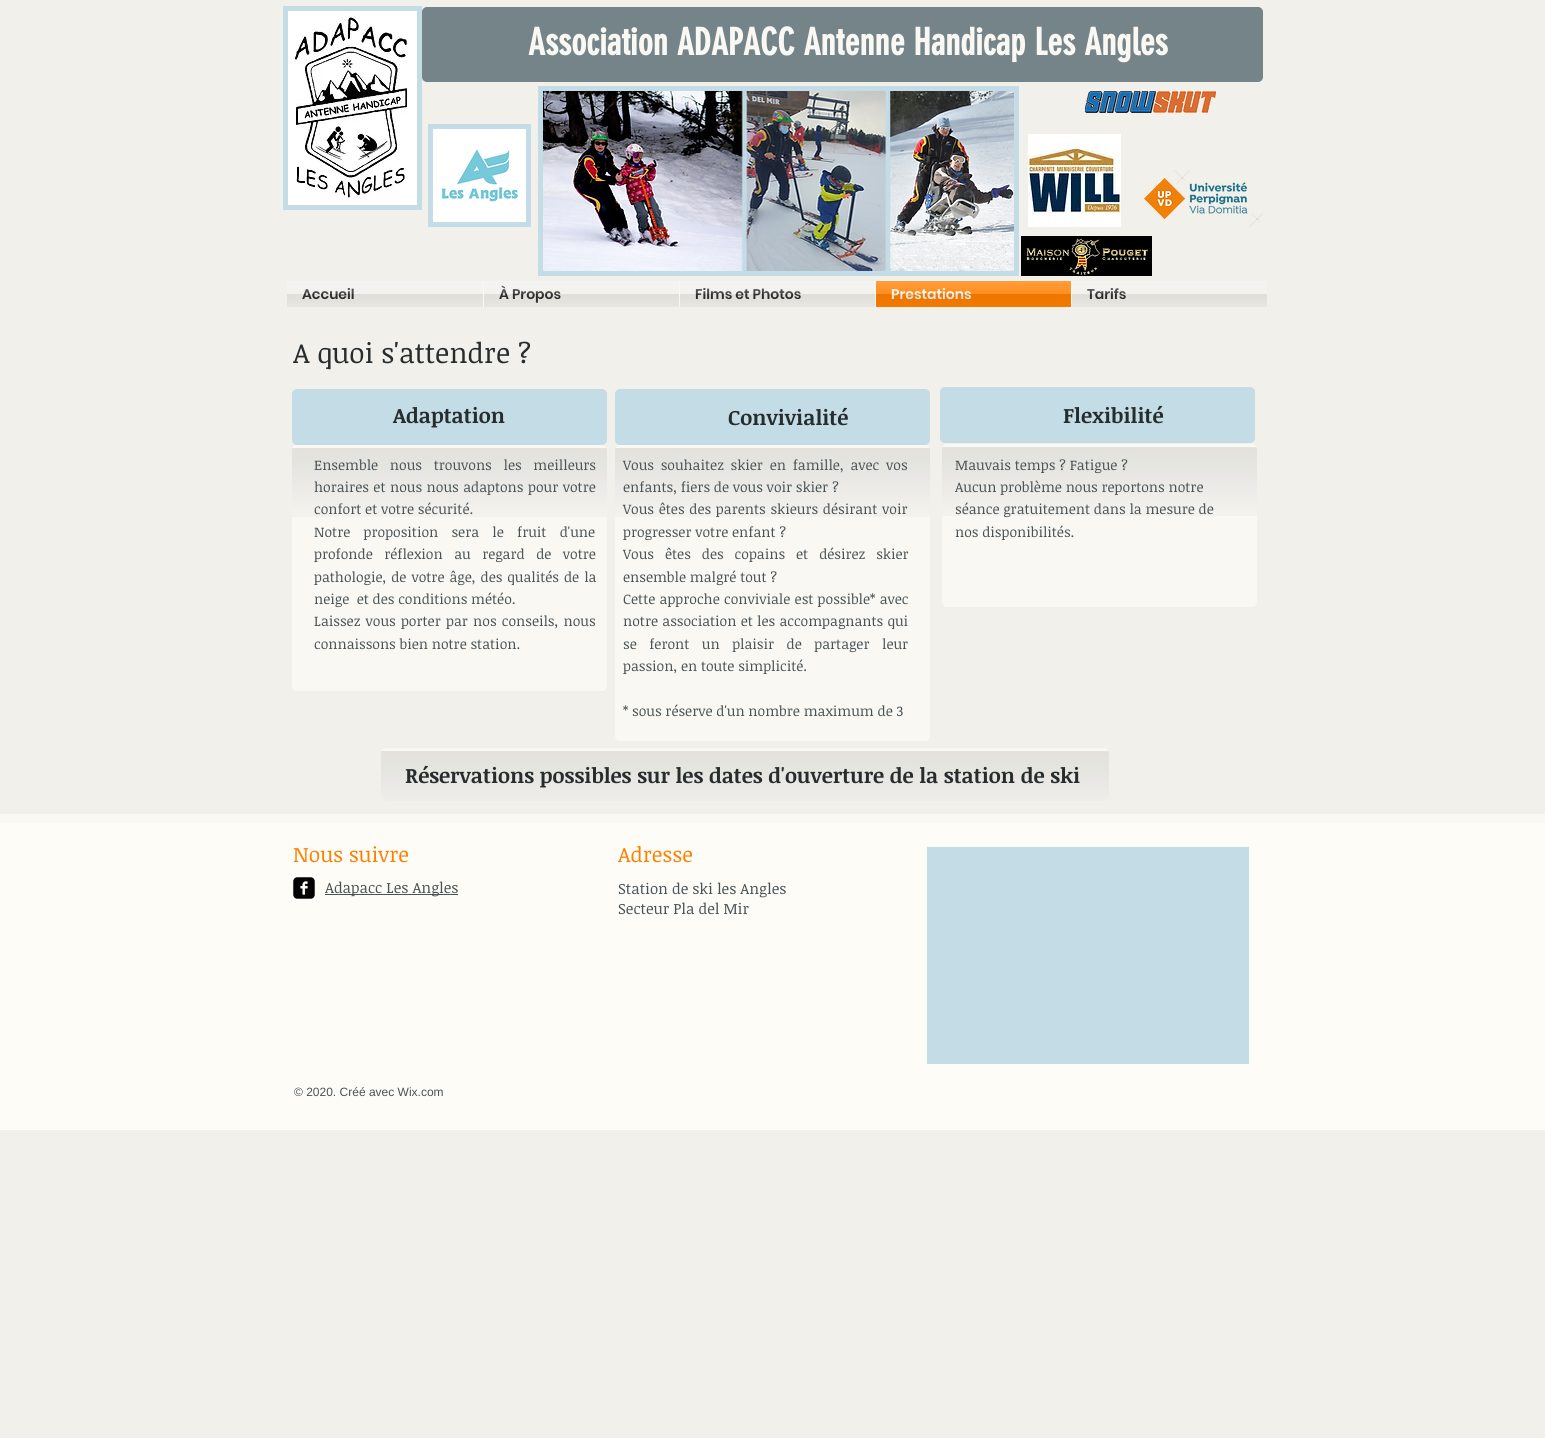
#include <cairo.h>
#include <math.h>
#include <stddef.h>

typedef struct { double x, y; const char *s; } line_t;

static void ink(cairo_t *ctx, unsigned color) {
    cairo_set_source_rgb(ctx, (color >> 16) / 255.0, (color >> 8 & 255) / 255.0, (color & 255) / 255.0);
}

static void write_spaced(cairo_t *ctx, double x, double y, const char *s, double letter, double word) {
    cairo_move_to(ctx, x, y);
    while (*s) {
        char ch[5] = {0};
        int n = 0;
        do ch[n++] = *s++; while ((*s & 0xC0) == 0x80);
        cairo_show_text(ctx, ch);
        cairo_rel_move_to(ctx, letter + word * (*ch == ' '), 0);
    }
}

static void round_path(cairo_t *ctx, double x, double y, double w, double h, double r) {
    cairo_new_sub_path(ctx);
    cairo_arc(ctx, x + w - r, y + h - r, r, 0, M_PI / 2);
    cairo_arc(ctx, x + r, y + h - r, r, M_PI / 2, M_PI);
    cairo_arc(ctx, x + r, y + r, r, M_PI, 1.5 * M_PI);
    cairo_arc(ctx, x + w - r, y + r, r, 1.5 * M_PI, 2 * M_PI);
    cairo_close_path(ctx);
}

static void paste(cairo_t *ctx, const char *path, double x, double y, double w, double h) {
    cairo_surface_t *image = cairo_image_surface_create_from_png(path);
    cairo_save(ctx);
    cairo_set_source_surface(ctx, image, x, y);
    cairo_rectangle(ctx, x, y, w, h);
    cairo_fill(ctx);
    cairo_restore(ctx);
    cairo_surface_destroy(image);
}

int main(void) {
    cairo_surface_t *surface = cairo_image_surface_create(CAIRO_FORMAT_RGB24, 1545, 1438);
    cairo_t *ctx = cairo_create(surface);
    cairo_font_options_t *options = cairo_font_options_create();
    cairo_font_options_set_hint_metrics(options, CAIRO_HINT_METRICS_OFF);
    cairo_font_options_set_hint_style(options, CAIRO_HINT_STYLE_NONE);
    cairo_set_font_options(ctx, options);
    cairo_set_miter_limit(ctx, 4);
    ink(ctx, 0xF1F0EB);
    cairo_paint(ctx);
    ink(ctx, 0xC3DCE5);
    cairo_rectangle(ctx, 283, 6, 139, 204);
    cairo_fill(ctx);
    paste(ctx, "media/1.png", 288, 11, 129, 194);
    ink(ctx, 0x758489);
    round_path(ctx, 422, 7, 841, 75, 5);
    cairo_fill(ctx);
    cairo_select_font_face(ctx, "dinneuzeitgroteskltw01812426", CAIRO_FONT_SLANT_NORMAL, CAIRO_FONT_WEIGHT_BOLD);
    cairo_set_font_size(ctx, 37);
    ink(ctx, 0xF9F8F3);
    cairo_move_to(ctx, 528, 55);
    cairo_show_text(ctx, "Association ADAPACC Antenne Handicap Les Angles");
    ink(ctx, 0xC3DCE5);
    cairo_rectangle(ctx, 538, 86, 481, 190);
    cairo_fill(ctx);
    paste(ctx, "media/2.png", 543, 91, 471, 180);
    paste(ctx, "media/3.png", 1085, 91, 131, 22);
    cairo_rectangle(ctx, 428, 124, 103, 103);
    cairo_fill(ctx);
    paste(ctx, "media/4.png", 433, 129, 93, 93);
    paste(ctx, "media/5.png", 1028, 134, 93, 93);
    paste(ctx, "media/6.png", 1144, 170, 119, 57);
    paste(ctx, "media/7.png", 1021, 236, 131, 40);
    cairo_select_font_face(ctx, "Poppins SemiBold", CAIRO_FONT_SLANT_NORMAL, CAIRO_FONT_WEIGHT_NORMAL);
    cairo_set_font_size(ctx, 14);
    ink(ctx, 0x302F2F);
    cairo_move_to(ctx, 302, 299);
    cairo_show_text(ctx, "Accueil");
    paste(ctx, "media/8.png", 287, 281, 196, 26);
    ink(ctx, 0xF9F8F3);
    cairo_rectangle(ctx, 483, 281, 1, 26);
    cairo_fill(ctx);
    ink(ctx, 0x302F2F);
    cairo_move_to(ctx, 499, 299);
    cairo_show_text(ctx, "À Propos");
    paste(ctx, "media/9.png", 484, 281, 195, 26);
    ink(ctx, 0xF9F8F3);
    cairo_rectangle(ctx, 679, 281, 1, 26);
    cairo_fill(ctx);
    ink(ctx, 0x302F2F);
    cairo_move_to(ctx, 695, 299);
    cairo_show_text(ctx, "Films et Photos");
    paste(ctx, "media/10.png", 680, 281, 195, 26);
    ink(ctx, 0xFF7F00);
    cairo_rectangle(ctx, 876, 281, 195, 26);
    cairo_fill(ctx);
    ink(ctx, 0xF9F8F3);
    cairo_rectangle(ctx, 875, 281, 1, 26);
    cairo_fill(ctx);
    cairo_move_to(ctx, 891, 299);
    cairo_show_text(ctx, "Prestations");
    paste(ctx, "media/11.png", 876, 281, 195, 26);
    cairo_rectangle(ctx, 1071, 281, 1, 26);
    cairo_fill(ctx);
    ink(ctx, 0x302F2F);
    cairo_move_to(ctx, 1087, 299);
    cairo_show_text(ctx, "Tarifs");
    paste(ctx, "media/12.png", 1072, 281, 195, 26);
    cairo_select_font_face(ctx, "Noticia Text", CAIRO_FONT_SLANT_NORMAL, CAIRO_FONT_WEIGHT_NORMAL);
    cairo_set_font_size(ctx, 28);
    ink(ctx, 0x272C2D);
    cairo_move_to(ctx, 293, 363);
    cairo_show_text(ctx, "A quoi s'attendre ?");
    ink(ctx, 0xC3DCE5);
    round_path(ctx, 292, 389, 315, 56, 5);
    cairo_fill(ctx);
    cairo_select_font_face(ctx, "Noticia Text", CAIRO_FONT_SLANT_NORMAL, CAIRO_FONT_WEIGHT_BOLD);
    cairo_set_font_size(ctx, 21);
    ink(ctx, 0x272C2D);
    cairo_move_to(ctx, 393, 423);
    cairo_show_text(ctx, "Adaptation");
    ink(ctx, 0xC3DCE5);
    round_path(ctx, 615, 389, 315, 56, 5);
    cairo_fill(ctx);
    ink(ctx, 0x272C2D);
    cairo_move_to(ctx, 728, 425);
    cairo_show_text(ctx, "Convivialité");
    ink(ctx, 0xC3DCE5);
    round_path(ctx, 940, 387, 315, 56, 5);
    cairo_fill(ctx);
    ink(ctx, 0x272C2D);
    cairo_move_to(ctx, 1063, 423);
    cairo_show_text(ctx, "Flexibilité");
    ink(ctx, 0xF9F8F3);
    round_path(ctx, 292, 445, 315, 246, 5);
    cairo_fill(ctx);
    paste(ctx, "media/13.png", 292, 448, 315, 69);
    cairo_select_font_face(ctx, "Noticia Text", CAIRO_FONT_SLANT_NORMAL, CAIRO_FONT_WEIGHT_NORMAL);
    cairo_set_font_size(ctx, 14);
    ink(ctx, 0x495356);
    write_spaced(ctx, 314, 470, "Ensemble nous trouvons les meilleurs", 0, 8);
    write_spaced(ctx, 314, 492, "horaires et nous nous adaptons pour votre", 0, 0.75);
    cairo_move_to(ctx, 314, 514);
    cairo_show_text(ctx, "confort et votre sécurité.");
    write_spaced(ctx, 314, 537, "Notre proposition sera le fruit d'une", 0, 9.5);
    write_spaced(ctx, 314, 559, "profonde réflexion au regard de votre", 0, 7.75);
    write_spaced(ctx, 314, 582, "pathologie, de votre âge, des qualités de la", 0, 1.25);
    cairo_move_to(ctx, 314, 604);
    cairo_show_text(ctx, "neige  et des conditions météo.");
    write_spaced(ctx, 314, 626, "Laissez vous porter par nos conseils, nous", 0, 1.5);
    cairo_move_to(ctx, 314, 649);
    cairo_show_text(ctx, "connaissons bien notre station.");
    ink(ctx, 0xF9F8F3);
    round_path(ctx, 615, 445, 315, 296, 5);
    cairo_fill(ctx);
    paste(ctx, "media/13.png", 615, 448, 315, 69);
    ink(ctx, 0x495356);
    write_spaced(ctx, 623, 470, "Vous souhaitez skier en famille, avec vos", 0, 3);
    cairo_move_to(ctx, 623, 492);
    cairo_show_text(ctx, "enfants, fiers de vous voir skier ?");
    write_spaced(ctx, 623, 514, "Vous êtes des parents skieurs désirant voir", 0, 1);
    cairo_move_to(ctx, 623, 537);
    cairo_show_text(ctx, "progresser votre enfant ?");
    write_spaced(ctx, 623, 559, "Vous êtes des copains et désirez skier", 0, 7.25);
    cairo_move_to(ctx, 623, 582);
    cairo_show_text(ctx, "ensemble malgré tout ?");
    write_spaced(ctx, 623, 604, "Cette approche conviviale est possible* avec", 0, 0.5);
    write_spaced(ctx, 623, 626, "notre association et les accompagnants qui", 0, 0.5);
    write_spaced(ctx, 623, 649, "se feront un plaisir de partager leur", 0, 8.75);
    cairo_move_to(ctx, 623, 671);
    cairo_show_text(ctx, "passion, en toute simplicité.");
    cairo_move_to(ctx, 623, 716);
    cairo_show_text(ctx, "* sous réserve d'un nombre maximum de 3");
    ink(ctx, 0xF9F8F3);
    round_path(ctx, 942, 444, 315, 163, 5);
    cairo_fill(ctx);
    paste(ctx, "media/13.png", 942, 447, 315, 69);
    ink(ctx, 0x495356);
    {
        static const line_t items[] = {
            {955, 470, "Mauvais temps ? Fatigue ?"},
            {955, 492, "Aucun problème nous reportons notre"},
            {955, 514, "séance gratuitement dans la mesure de"},
            {955, 537, "nos disponibilités."},
        };
        for (size_t i = 0; i < sizeof items / sizeof *items; i++) {
            cairo_move_to(ctx, items[i].x, items[i].y);
            cairo_show_text(ctx, items[i].s);
        }
    }
    ink(ctx, 0xF9F8F3);
    round_path(ctx, 381, 748, 728, 53, 5);
    cairo_fill(ctx);
    paste(ctx, "media/14.png", 381, 751, 728, 50);
    cairo_select_font_face(ctx, "Noticia Text", CAIRO_FONT_SLANT_NORMAL, CAIRO_FONT_WEIGHT_BOLD);
    cairo_set_font_size(ctx, 21);
    ink(ctx, 0x272C2D);
    cairo_move_to(ctx, 405, 783);
    cairo_show_text(ctx, "Réservations possibles sur les dates d'ouverture de la station de ski");
    ink(ctx, 0xFDFCF7);
    cairo_rectangle(ctx, 0, 823, 1545, 307);
    cairo_fill(ctx);
    ink(ctx, 0xF9F8F3);
    cairo_rectangle(ctx, 0, 814, 1545, 9);
    cairo_fill(ctx);
    cairo_select_font_face(ctx, "Noticia Text", CAIRO_FONT_SLANT_NORMAL, CAIRO_FONT_WEIGHT_NORMAL);
    ink(ctx, 0xFF7F00);
    cairo_move_to(ctx, 293, 862);
    cairo_show_text(ctx, "Nous suivre");
    cairo_move_to(ctx, 618, 862);
    cairo_show_text(ctx, "Adresse");
    ink(ctx, 0xC3DCE5);
    cairo_rectangle(ctx, 927, 847, 322, 217);
    cairo_fill(ctx);
    paste(ctx, "media/15.png", 293, 877, 22, 22);
    ink(ctx, 0x495356);
    cairo_rectangle(ctx, 325, 894, 133, 1);
    cairo_fill(ctx);
    cairo_set_font_size(ctx, 15);
    {
        static const line_t items[] = {
            {325, 893, "Adapacc Les Angles"},
            {618, 894, "Station de ski les Angles"},
            {618, 914, "Secteur Pla del Mir"},
        };
        for (size_t i = 0; i < sizeof items / sizeof *items; i++) {
            cairo_move_to(ctx, items[i].x, items[i].y);
            cairo_show_text(ctx, items[i].s);
        }
    }
    cairo_select_font_face(ctx, "Liberation Sans", CAIRO_FONT_SLANT_NORMAL, CAIRO_FONT_WEIGHT_NORMAL);
    cairo_set_font_size(ctx, 12);
    cairo_move_to(ctx, 294, 1096);
    cairo_show_text(ctx, "© 2020. Créé avec Wix.com");
    cairo_surface_write_to_png(surface, "image.png");
    cairo_font_options_destroy(options);
    cairo_destroy(ctx);
    cairo_surface_destroy(surface);
    return 0;
}
